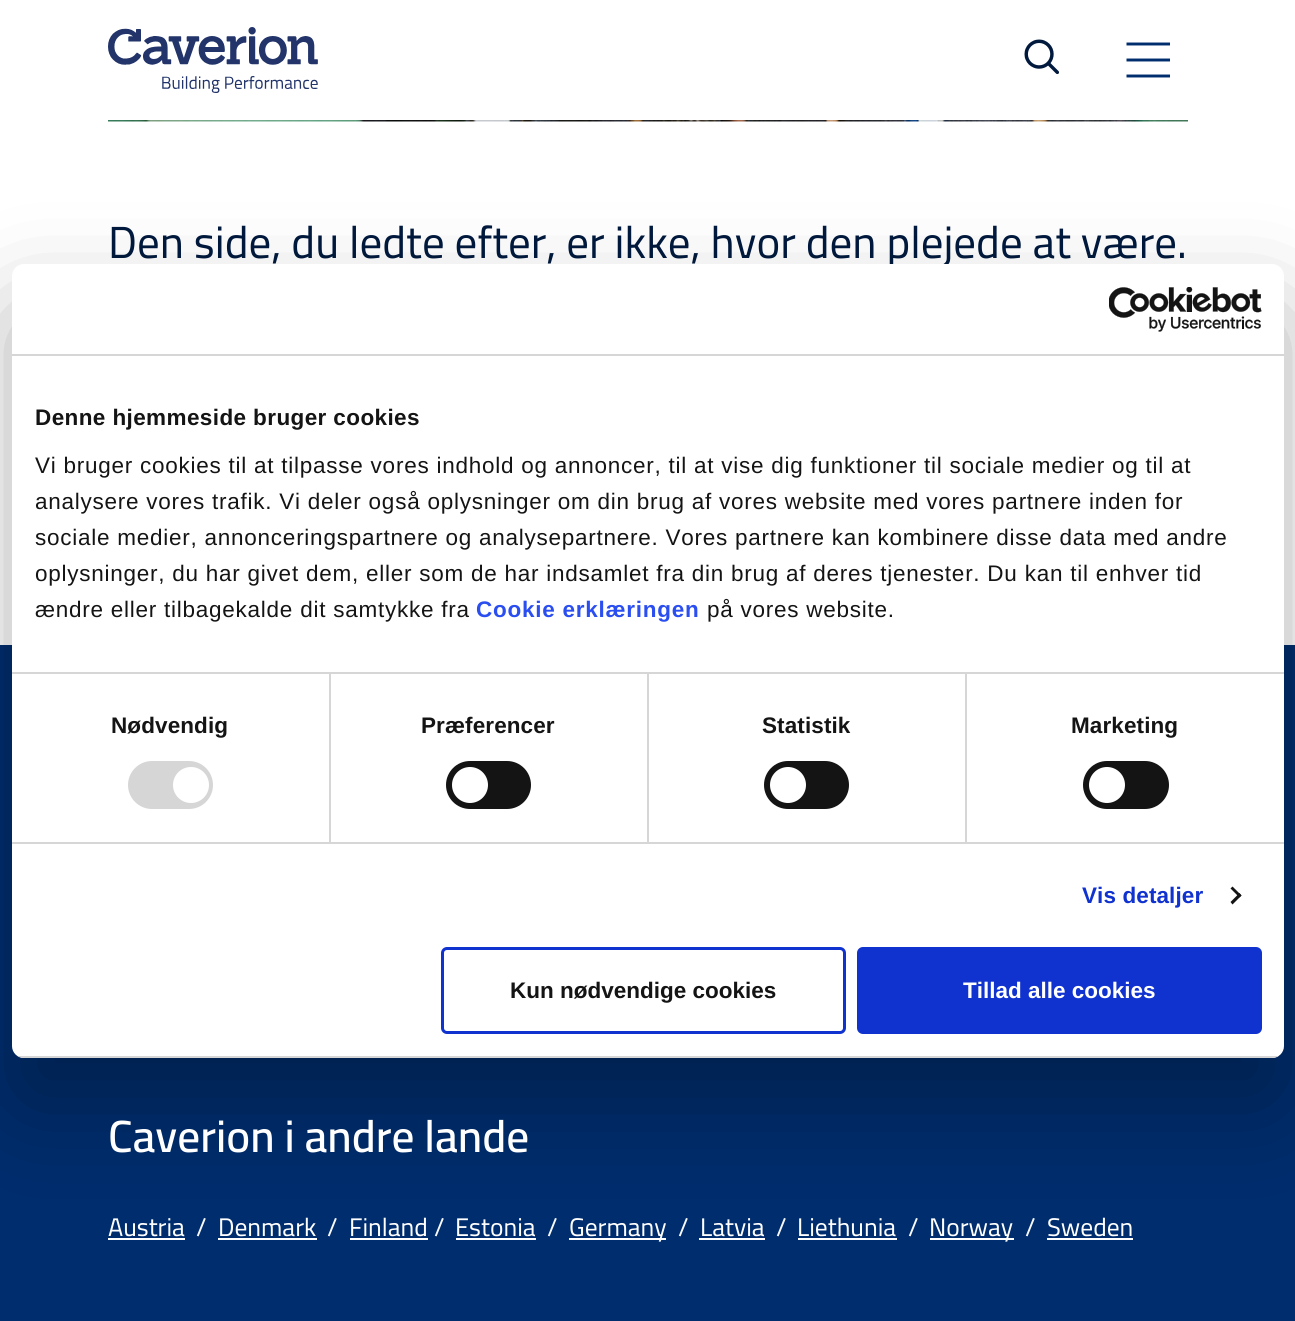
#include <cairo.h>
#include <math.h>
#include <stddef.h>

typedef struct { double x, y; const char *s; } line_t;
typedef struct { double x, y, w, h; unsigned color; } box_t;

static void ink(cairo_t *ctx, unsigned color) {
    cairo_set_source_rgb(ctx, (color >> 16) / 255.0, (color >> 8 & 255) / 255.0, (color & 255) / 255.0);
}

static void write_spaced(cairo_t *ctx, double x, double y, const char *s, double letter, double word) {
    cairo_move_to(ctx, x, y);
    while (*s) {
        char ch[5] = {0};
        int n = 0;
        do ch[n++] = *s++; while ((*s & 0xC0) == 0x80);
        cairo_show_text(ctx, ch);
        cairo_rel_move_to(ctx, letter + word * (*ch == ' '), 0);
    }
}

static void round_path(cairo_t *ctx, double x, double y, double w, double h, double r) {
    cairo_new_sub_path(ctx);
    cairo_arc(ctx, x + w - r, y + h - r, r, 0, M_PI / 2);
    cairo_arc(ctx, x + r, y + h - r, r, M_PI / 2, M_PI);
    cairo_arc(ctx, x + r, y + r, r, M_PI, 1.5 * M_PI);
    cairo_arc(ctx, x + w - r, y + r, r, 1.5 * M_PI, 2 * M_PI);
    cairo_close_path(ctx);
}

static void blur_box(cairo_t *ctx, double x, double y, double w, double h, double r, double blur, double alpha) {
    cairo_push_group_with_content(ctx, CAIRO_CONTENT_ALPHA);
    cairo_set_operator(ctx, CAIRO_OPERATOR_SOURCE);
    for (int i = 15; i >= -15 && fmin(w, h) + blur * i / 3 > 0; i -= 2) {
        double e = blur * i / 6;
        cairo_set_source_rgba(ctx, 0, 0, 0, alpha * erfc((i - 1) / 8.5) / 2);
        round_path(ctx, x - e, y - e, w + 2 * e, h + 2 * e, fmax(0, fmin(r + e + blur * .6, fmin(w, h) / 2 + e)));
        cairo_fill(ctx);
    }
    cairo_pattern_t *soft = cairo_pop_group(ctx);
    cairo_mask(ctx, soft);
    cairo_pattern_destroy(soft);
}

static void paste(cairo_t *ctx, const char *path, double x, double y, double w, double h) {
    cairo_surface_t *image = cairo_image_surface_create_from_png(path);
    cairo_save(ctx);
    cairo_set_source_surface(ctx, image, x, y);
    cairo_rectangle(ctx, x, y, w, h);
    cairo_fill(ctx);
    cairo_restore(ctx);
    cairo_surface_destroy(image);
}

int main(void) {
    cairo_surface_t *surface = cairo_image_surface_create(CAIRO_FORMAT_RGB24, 1295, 1321);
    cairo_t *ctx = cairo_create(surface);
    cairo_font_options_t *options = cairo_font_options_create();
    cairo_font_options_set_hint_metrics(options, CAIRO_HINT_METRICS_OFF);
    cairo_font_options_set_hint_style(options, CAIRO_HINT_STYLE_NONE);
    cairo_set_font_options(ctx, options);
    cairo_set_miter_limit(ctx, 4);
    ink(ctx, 0xFFFFFF);
    cairo_paint(ctx);
    paste(ctx, "media/1.png", 108, 27, 210, 66);
    paste(ctx, "media/2.png", 1024, 39, 35, 36);
    cairo_new_path(ctx);
    cairo_move_to(ctx, 1126.5, 44);
    cairo_line_to(ctx, 1170, 44);
    cairo_move_to(ctx, 1126.5, 60);
    cairo_line_to(ctx, 1170, 60);
    cairo_move_to(ctx, 1126.5, 76);
    cairo_line_to(ctx, 1170, 76);
    ink(ctx, 0x002D6E);
    cairo_set_line_width(ctx, 2.9);
    cairo_set_line_join(ctx, CAIRO_LINE_JOIN_ROUND);
    cairo_stroke(ctx);
    paste(ctx, "media/3.png", 108, 120, 1080, 2);
    cairo_select_font_face(ctx, "Cairo", CAIRO_FONT_SLANT_NORMAL, CAIRO_FONT_WEIGHT_NORMAL);
    cairo_set_font_size(ctx, 45);
    ink(ctx, 0x00193D);
    cairo_move_to(ctx, 108, 258);
    cairo_show_text(ctx, "Den side, du ledte efter, er ikke, hvor den plejede at være.");
    {
        static const box_t items[] = {
            {0, 645, 1295, 676, 0x002D6E},
            {108, 1238, 77, 2, 0xFFFFFF},
            {218, 1238, 99, 2, 0xFFFFFF},
            {350, 1238, 78, 2, 0xFFFFFF},
            {456, 1238, 80, 2, 0xFFFFFF},
            {569, 1238, 97, 2, 0xFFFFFF},
            {699, 1238, 66, 2, 0xFFFFFF},
            {798, 1238, 99, 2, 0xFFFFFF},
            {930, 1238, 84, 2, 0xFFFFFF},
            {1047, 1238, 86, 2, 0xFFFFFF},
        };
        for (size_t i = 0; i < sizeof items / sizeof *items; i++) {
            ink(ctx, items[i].color);
            cairo_rectangle(ctx, items[i].x, items[i].y, items[i].w, items[i].h);
            cairo_fill(ctx);
        }
    }
    ink(ctx, 0x000000);
    blur_box(ctx, 12, 312, 1272, 794, 12, 51, 0.3);
    ink(ctx, 0xFFFFFF);
    round_path(ctx, 12, 264, 1272, 794, 12);
    cairo_fill(ctx);
    ink(ctx, 0xD6D6D6);
    cairo_rectangle(ctx, 12, 354, 1272, 2);
    cairo_fill(ctx);
    paste(ctx, "media/4.png", 1109, 287, 153, 45);
    cairo_rectangle(ctx, 12, 672, 1272, 2);
    cairo_fill(ctx);
    cairo_select_font_face(ctx, "Liberation Sans", CAIRO_FONT_SLANT_NORMAL, CAIRO_FONT_WEIGHT_BOLD);
    cairo_set_font_size(ctx, 22.5);
    ink(ctx, 0x141414);
    write_spaced(ctx, 35, 425, "Denne hjemmeside bruger cookies", 0.4, 0);
    cairo_select_font_face(ctx, "Liberation Sans", CAIRO_FONT_SLANT_NORMAL, CAIRO_FONT_WEIGHT_NORMAL);
    {
        static const line_t items[] = {
            {35, 473, "Vi bruger cookies til at tilpasse vores indhold og annoncer, til at vise dig funktioner til sociale medier og til at"},
            {35, 509, "analysere vores trafik. Vi deler også oplysninger om din brug af vores website med vores partnere inden for"},
            {35, 545, "sociale medier, annonceringspartnere og analysepartnere. Vores partnere kan kombinere disse data med andre"},
            {35, 581, "oplysninger, du har givet dem, eller som de har indsamlet fra din brug af deres tjenester. Du kan til enhver tid"},
            {35, 617, "ændre eller tilbagekalde dit samtykke fra"},
        };
        for (size_t i = 0; i < sizeof items / sizeof *items; i++) {
            write_spaced(ctx, items[i].x, items[i].y, items[i].s, 0.75, 0);
        }
    }
    cairo_select_font_face(ctx, "Liberation Sans", CAIRO_FONT_SLANT_NORMAL, CAIRO_FONT_WEIGHT_BOLD);
    ink(ctx, 0x2A4EEF);
    write_spaced(ctx, 476, 617, "Cookie erklæringen", 0.75, 0);
    cairo_select_font_face(ctx, "Liberation Sans", CAIRO_FONT_SLANT_NORMAL, CAIRO_FONT_WEIGHT_NORMAL);
    ink(ctx, 0x141414);
    write_spaced(ctx, 707, 617, "på vores website.", 0.75, 0);
    ink(ctx, 0xD6D6D6);
    cairo_rectangle(ctx, 12, 842, 1272, 2);
    cairo_fill(ctx);
    cairo_rectangle(ctx, 329, 674, 2, 168);
    cairo_fill(ctx);
    cairo_select_font_face(ctx, "Liberation Sans", CAIRO_FONT_SLANT_NORMAL, CAIRO_FONT_WEIGHT_BOLD);
    ink(ctx, 0x141414);
    write_spaced(ctx, 111, 733, "Nødvendig", 0.1, 0);
    ink(ctx, 0xD6D6D6);
    round_path(ctx, 128, 761, 85, 48, 24);
    cairo_fill(ctx);
    ink(ctx, 0xFFFFFF);
    cairo_arc(ctx, 191, 785, 18, 0, 2 * M_PI);
    cairo_fill(ctx);
    ink(ctx, 0xD6D6D6);
    cairo_rectangle(ctx, 647, 674, 2, 168);
    cairo_fill(ctx);
    ink(ctx, 0x141414);
    write_spaced(ctx, 421, 733, "Præferencer", 0.1, 0);
    round_path(ctx, 446, 761, 85, 48, 24);
    cairo_fill(ctx);
    ink(ctx, 0xFFFFFF);
    cairo_arc(ctx, 470, 785, 18, 0, 2 * M_PI);
    cairo_fill(ctx);
    ink(ctx, 0xD6D6D6);
    cairo_rectangle(ctx, 965, 674, 2, 168);
    cairo_fill(ctx);
    ink(ctx, 0x141414);
    write_spaced(ctx, 762, 733, "Statistik", 0.1, 0);
    round_path(ctx, 764, 761, 85, 48, 24);
    cairo_fill(ctx);
    ink(ctx, 0xFFFFFF);
    cairo_arc(ctx, 788, 785, 18, 0, 2 * M_PI);
    cairo_fill(ctx);
    ink(ctx, 0x141414);
    write_spaced(ctx, 1071, 733, "Marketing", 0.1, 0);
    round_path(ctx, 1083, 761, 86, 48, 24);
    cairo_fill(ctx);
    ink(ctx, 0xFFFFFF);
    cairo_arc(ctx, 1107, 785, 18, 0, 2 * M_PI);
    cairo_fill(ctx);
    ink(ctx, 0x1032CF);
    write_spaced(ctx, 1082, 903, "Vis detaljer", 0.1, 0);
    ink(ctx, 0x141414);
    cairo_new_path(ctx);
    cairo_move_to(ctx, 1232.5, 886.5);
    cairo_line_to(ctx, 1241.5, 895.5);
    cairo_line_to(ctx, 1239.5, 897.5);
    cairo_line_to(ctx, 1230.5, 888.5);
    cairo_close_path(ctx);
    cairo_fill(ctx);
    cairo_new_path(ctx);
    cairo_move_to(ctx, 1239.5, 893);
    cairo_line_to(ctx, 1241.5, 895.5);
    cairo_line_to(ctx, 1232.5, 904.5);
    cairo_line_to(ctx, 1230.5, 902);
    cairo_close_path(ctx);
    cairo_fill(ctx);
    cairo_save(ctx);
    round_path(ctx, 12, 264, 1272, 794, 12);
    cairo_clip(ctx);
    ink(ctx, 0xD6D6D6);
    cairo_rectangle(ctx, 12, 1056, 1272, 2);
    cairo_fill(ctx);
    cairo_restore(ctx);
    round_path(ctx, 442.5, 948.5, 402, 84, 4.5);
    ink(ctx, 0x1032CF);
    cairo_set_line_width(ctx, 3);
    cairo_set_line_join(ctx, CAIRO_LINE_JOIN_MITER);
    cairo_stroke(ctx);
    ink(ctx, 0x141414);
    cairo_move_to(ctx, 510, 998);
    cairo_show_text(ctx, "Kun nødvendige cookies");
    ink(ctx, 0x1032CF);
    round_path(ctx, 858.5, 948.5, 402, 84, 4.5);
    cairo_fill_preserve(ctx);
    cairo_stroke(ctx);
    ink(ctx, 0xFFFFFF);
    cairo_move_to(ctx, 963, 998);
    cairo_show_text(ctx, "Tillad alle cookies");
    cairo_select_font_face(ctx, "Cairo SemiBold", CAIRO_FONT_SLANT_NORMAL, CAIRO_FONT_WEIGHT_NORMAL);
    cairo_set_font_size(ctx, 45);
    cairo_move_to(ctx, 108, 1152);
    cairo_show_text(ctx, "Caverion i andre lande");
    cairo_select_font_face(ctx, "Cairo", CAIRO_FONT_SLANT_NORMAL, CAIRO_FONT_WEIGHT_NORMAL);
    cairo_set_font_size(ctx, 25.5);
    cairo_move_to(ctx, 108, 1236);
    cairo_show_text(ctx, "Austria");
    ink(ctx, 0xF8F9FA);
    cairo_move_to(ctx, 196, 1236);
    cairo_show_text(ctx, "/");
    ink(ctx, 0xFFFFFF);
    cairo_move_to(ctx, 218, 1236);
    cairo_show_text(ctx, "Denmark");
    ink(ctx, 0xF8F9FA);
    cairo_move_to(ctx, 327, 1236);
    cairo_show_text(ctx, "/");
    ink(ctx, 0xFFFFFF);
    cairo_move_to(ctx, 349, 1236);
    cairo_show_text(ctx, "Finland");
    ink(ctx, 0xF8F9FA);
    cairo_move_to(ctx, 434, 1236);
    cairo_show_text(ctx, "/");
    ink(ctx, 0xFFFFFF);
    cairo_move_to(ctx, 455, 1236);
    cairo_show_text(ctx, "Estonia");
    ink(ctx, 0xF8F9FA);
    cairo_move_to(ctx, 547, 1236);
    cairo_show_text(ctx, "/");
    ink(ctx, 0xFFFFFF);
    cairo_move_to(ctx, 569, 1236);
    cairo_show_text(ctx, "Germany");
    ink(ctx, 0xF8F9FA);
    cairo_move_to(ctx, 678, 1236);
    cairo_show_text(ctx, "/");
    ink(ctx, 0xFFFFFF);
    cairo_move_to(ctx, 700, 1236);
    cairo_show_text(ctx, "Latvia");
    ink(ctx, 0xF8F9FA);
    cairo_move_to(ctx, 776, 1236);
    cairo_show_text(ctx, "/");
    ink(ctx, 0xFFFFFF);
    cairo_move_to(ctx, 797, 1236);
    cairo_show_text(ctx, "Liethunia");
    ink(ctx, 0xF8F9FA);
    cairo_move_to(ctx, 908, 1236);
    cairo_show_text(ctx, "/");
    ink(ctx, 0xFFFFFF);
    cairo_move_to(ctx, 929, 1236);
    cairo_show_text(ctx, "Norway");
    ink(ctx, 0xF8F9FA);
    cairo_move_to(ctx, 1025, 1236);
    cairo_show_text(ctx, "/");
    ink(ctx, 0xFFFFFF);
    cairo_move_to(ctx, 1047, 1236);
    cairo_show_text(ctx, "Sweden");
    cairo_surface_write_to_png(surface, "image.png");
    cairo_font_options_destroy(options);
    cairo_destroy(ctx);
    cairo_surface_destroy(surface);
    return 0;
}
